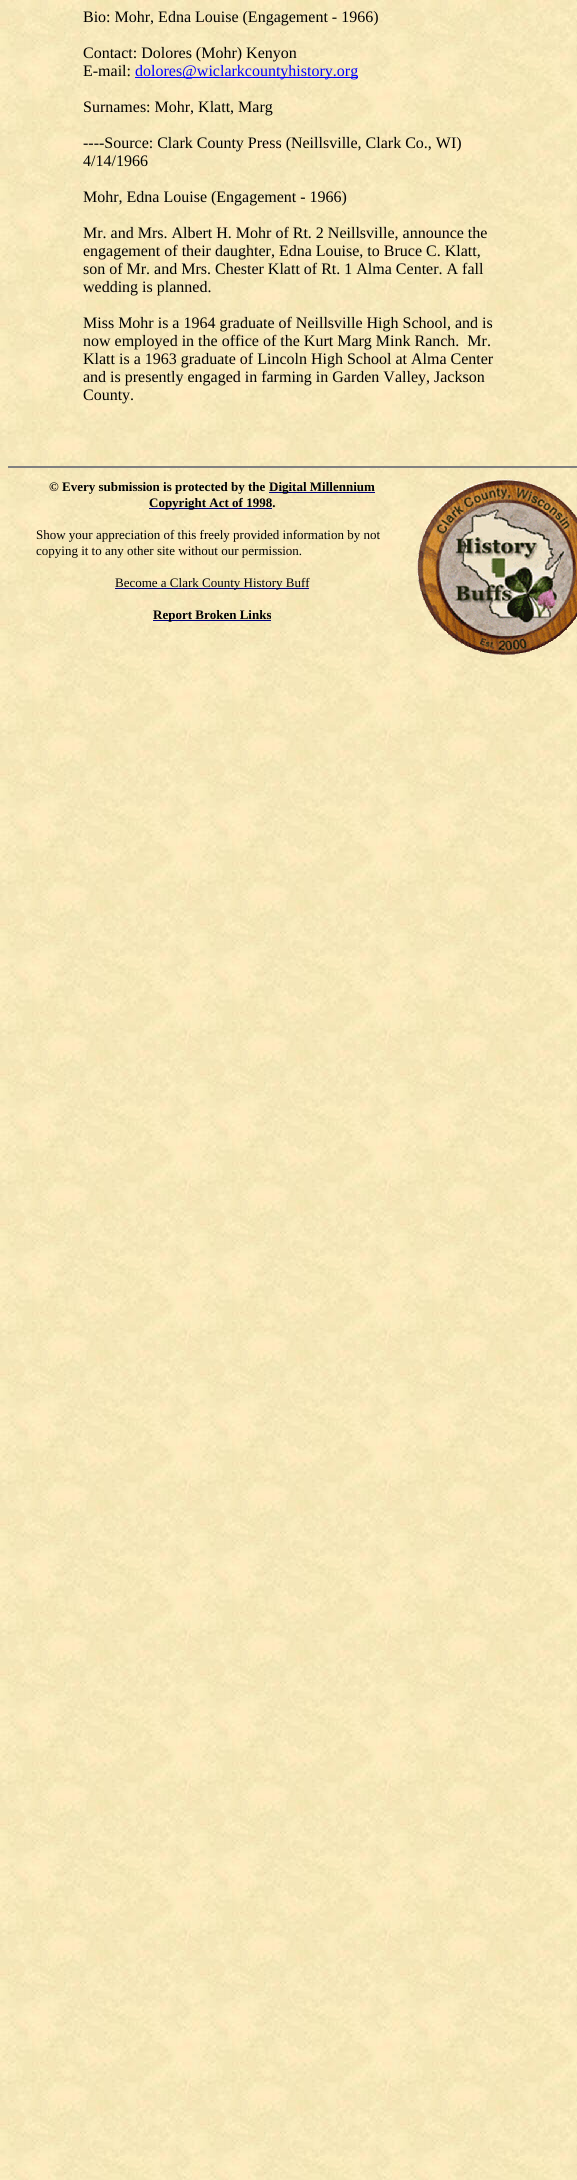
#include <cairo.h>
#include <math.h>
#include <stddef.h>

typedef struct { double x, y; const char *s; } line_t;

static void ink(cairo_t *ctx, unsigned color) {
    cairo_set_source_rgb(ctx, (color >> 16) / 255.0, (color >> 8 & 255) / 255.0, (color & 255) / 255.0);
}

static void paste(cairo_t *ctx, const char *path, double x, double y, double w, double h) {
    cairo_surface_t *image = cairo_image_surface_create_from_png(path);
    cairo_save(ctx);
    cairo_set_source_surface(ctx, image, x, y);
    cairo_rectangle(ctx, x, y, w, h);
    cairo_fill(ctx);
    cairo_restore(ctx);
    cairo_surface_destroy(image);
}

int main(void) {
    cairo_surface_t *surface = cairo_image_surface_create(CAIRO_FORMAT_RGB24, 577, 2180);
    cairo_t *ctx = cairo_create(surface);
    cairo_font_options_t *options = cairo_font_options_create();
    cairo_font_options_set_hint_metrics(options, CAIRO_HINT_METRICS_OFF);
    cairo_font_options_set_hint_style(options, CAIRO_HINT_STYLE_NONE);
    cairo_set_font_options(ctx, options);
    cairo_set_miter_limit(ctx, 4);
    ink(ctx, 0xFFFFFF);
    cairo_paint(ctx);
    paste(ctx, "media/1.png", 0, 0, 577, 2180);
    cairo_select_font_face(ctx, "Liberation Serif", CAIRO_FONT_SLANT_NORMAL, CAIRO_FONT_WEIGHT_NORMAL);
    cairo_set_font_size(ctx, 16);
    ink(ctx, 0x000000);
    {
        static const line_t items[] = {
            {83, 22, "Bio: Mohr, Edna Louise (Engagement - 1966)"},
            {83, 58, "Contact: Dolores (Mohr) Kenyon"},
            {83, 76, "E-mail:"},
        };
        for (size_t i = 0; i < sizeof items / sizeof *items; i++) {
            cairo_move_to(ctx, items[i].x, items[i].y);
            cairo_show_text(ctx, items[i].s);
        }
    }
    ink(ctx, 0x0000FF);
    cairo_rectangle(ctx, 135, 77, 223, 1);
    cairo_fill(ctx);
    cairo_move_to(ctx, 135, 76);
    cairo_show_text(ctx, "dolores@wiclarkcountyhistory.org");
    ink(ctx, 0x000000);
    {
        static const line_t items[] = {
            {83, 112, "Surnames: Mohr, Klatt, Marg"},
            {83, 148, "----Source: Clark County Press (Neillsville, Clark Co., WI)"},
            {83, 166, "4/14/1966"},
            {83, 202, "Mohr, Edna Louise (Engagement - 1966)"},
            {83, 238, "Mr. and Mrs. Albert H. Mohr of Rt. 2 Neillsville, announce the"},
            {83, 256, "engagement of their daughter, Edna Louise, to Bruce C. Klatt,"},
            {83, 274, "son of Mr. and Mrs. Chester Klatt of Rt. 1 Alma Center. A fall"},
            {83, 292, "wedding is planned."},
            {83, 328, "Miss Mohr is a 1964 graduate of Neillsville High School, and is"},
            {83, 346, "now employed in the office of the Kurt Marg Mink Ranch.  Mr."},
            {83, 364, "Klatt is a 1963 graduate of Lincoln High School at Alma Center"},
            {83, 382, "and is presently engaged in farming in Garden Valley, Jackson"},
            {83, 400, "County."},
        };
        for (size_t i = 0; i < sizeof items / sizeof *items; i++) {
            cairo_move_to(ctx, items[i].x, items[i].y);
            cairo_show_text(ctx, items[i].s);
        }
    }
    ink(ctx, 0x808080);
    cairo_rectangle(ctx, 8, 466, 569, 2);
    cairo_fill(ctx);
    cairo_select_font_face(ctx, "Liberation Serif", CAIRO_FONT_SLANT_NORMAL, CAIRO_FONT_WEIGHT_BOLD);
    cairo_set_font_size(ctx, 13);
    ink(ctx, 0x000000);
    cairo_move_to(ctx, 49, 491);
    cairo_show_text(ctx, "© Every submission is protected by the");
    ink(ctx, 0x000080);
    cairo_rectangle(ctx, 269, 492, 106, 1);
    cairo_fill(ctx);
    ink(ctx, 0x000000);
    cairo_move_to(ctx, 269, 491);
    cairo_show_text(ctx, "Digital Millennium");
    ink(ctx, 0x000080);
    cairo_rectangle(ctx, 149, 508, 123, 1);
    cairo_fill(ctx);
    ink(ctx, 0x000000);
    cairo_move_to(ctx, 149, 507);
    cairo_show_text(ctx, "Copyright Act of 1998.");
    cairo_select_font_face(ctx, "Liberation Serif", CAIRO_FONT_SLANT_NORMAL, CAIRO_FONT_WEIGHT_NORMAL);
    cairo_move_to(ctx, 36, 539);
    cairo_show_text(ctx, "Show your appreciation of this freely provided information by not");
    cairo_move_to(ctx, 36, 555);
    cairo_show_text(ctx, "copying it to any other site without our permission.");
    ink(ctx, 0x000080);
    cairo_rectangle(ctx, 115, 588, 194, 1);
    cairo_fill(ctx);
    ink(ctx, 0x000000);
    cairo_move_to(ctx, 115, 587);
    cairo_show_text(ctx, "Become a Clark County History Buff");
    ink(ctx, 0x000080);
    cairo_rectangle(ctx, 153, 620, 118, 1);
    cairo_fill(ctx);
    cairo_select_font_face(ctx, "Liberation Serif", CAIRO_FONT_SLANT_NORMAL, CAIRO_FONT_WEIGHT_BOLD);
    ink(ctx, 0x000000);
    cairo_move_to(ctx, 153, 619);
    cairo_show_text(ctx, "Report Broken Links");
    paste(ctx, "media/2.png", 417, 479, 160, 176);
    cairo_surface_write_to_png(surface, "image.png");
    cairo_font_options_destroy(options);
    cairo_destroy(ctx);
    cairo_surface_destroy(surface);
    return 0;
}
